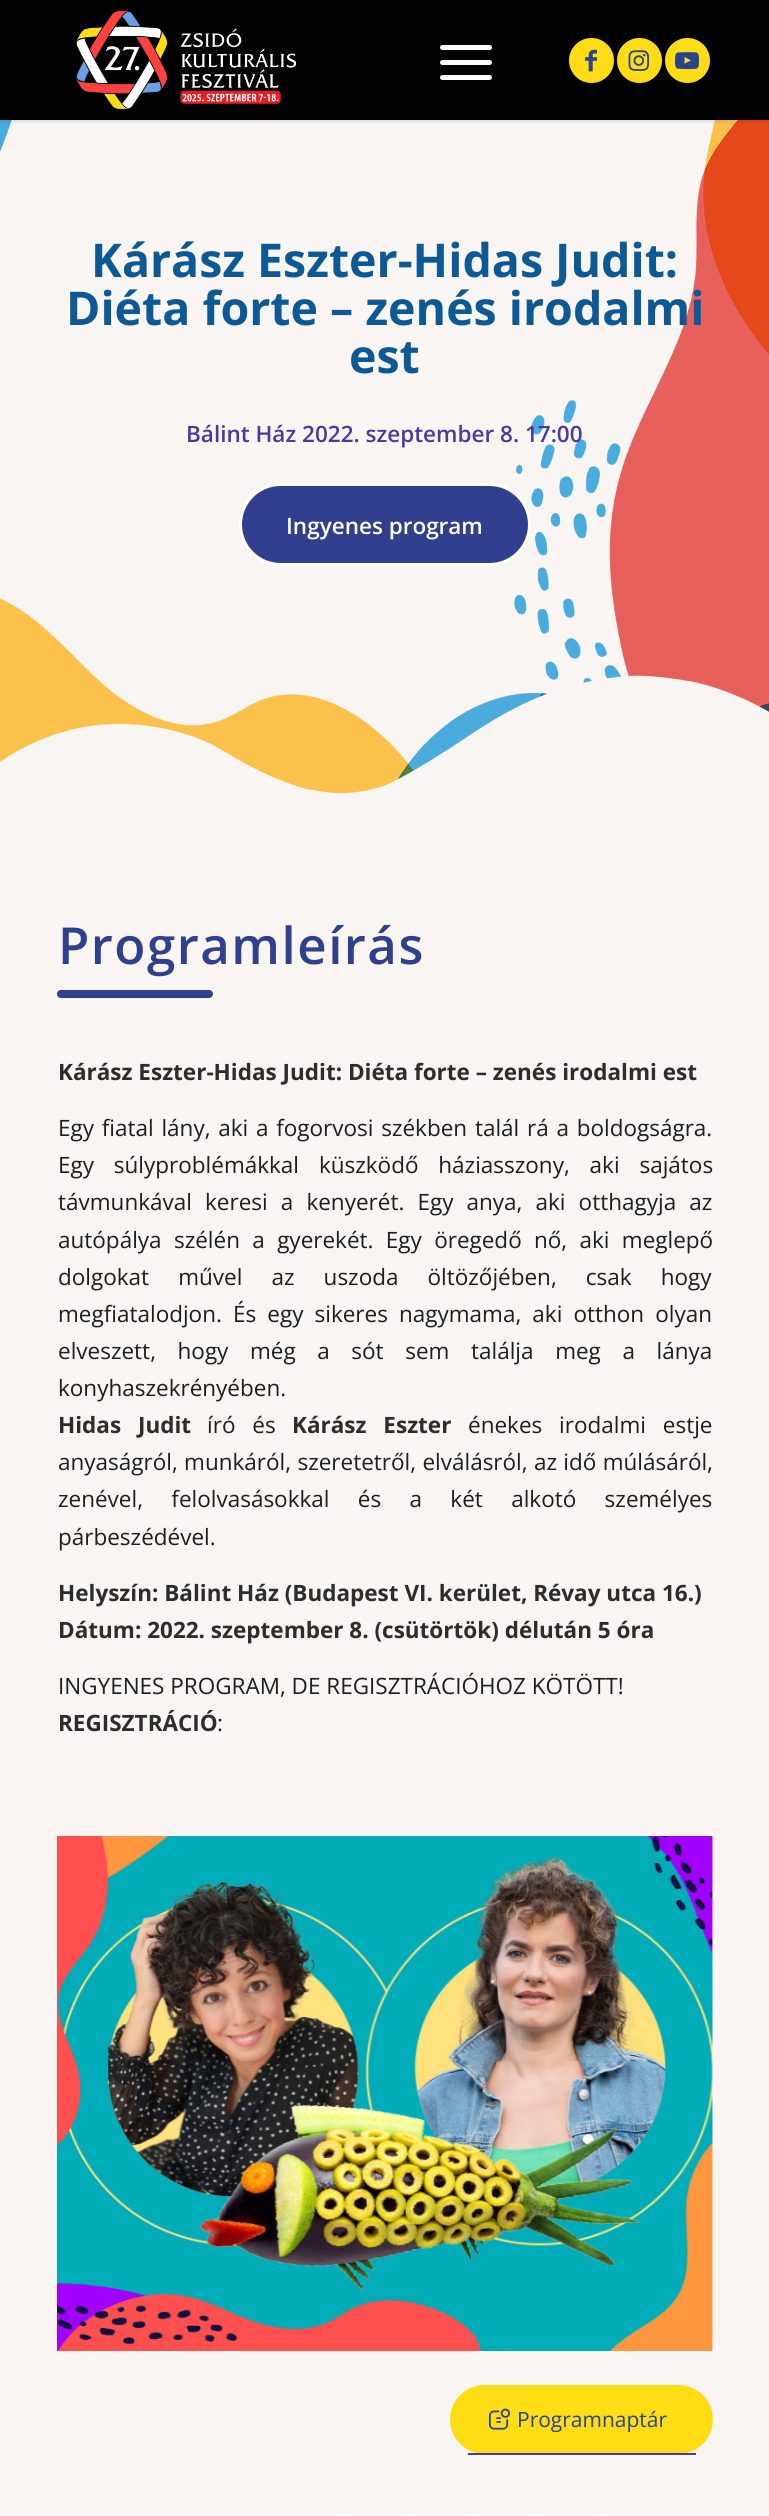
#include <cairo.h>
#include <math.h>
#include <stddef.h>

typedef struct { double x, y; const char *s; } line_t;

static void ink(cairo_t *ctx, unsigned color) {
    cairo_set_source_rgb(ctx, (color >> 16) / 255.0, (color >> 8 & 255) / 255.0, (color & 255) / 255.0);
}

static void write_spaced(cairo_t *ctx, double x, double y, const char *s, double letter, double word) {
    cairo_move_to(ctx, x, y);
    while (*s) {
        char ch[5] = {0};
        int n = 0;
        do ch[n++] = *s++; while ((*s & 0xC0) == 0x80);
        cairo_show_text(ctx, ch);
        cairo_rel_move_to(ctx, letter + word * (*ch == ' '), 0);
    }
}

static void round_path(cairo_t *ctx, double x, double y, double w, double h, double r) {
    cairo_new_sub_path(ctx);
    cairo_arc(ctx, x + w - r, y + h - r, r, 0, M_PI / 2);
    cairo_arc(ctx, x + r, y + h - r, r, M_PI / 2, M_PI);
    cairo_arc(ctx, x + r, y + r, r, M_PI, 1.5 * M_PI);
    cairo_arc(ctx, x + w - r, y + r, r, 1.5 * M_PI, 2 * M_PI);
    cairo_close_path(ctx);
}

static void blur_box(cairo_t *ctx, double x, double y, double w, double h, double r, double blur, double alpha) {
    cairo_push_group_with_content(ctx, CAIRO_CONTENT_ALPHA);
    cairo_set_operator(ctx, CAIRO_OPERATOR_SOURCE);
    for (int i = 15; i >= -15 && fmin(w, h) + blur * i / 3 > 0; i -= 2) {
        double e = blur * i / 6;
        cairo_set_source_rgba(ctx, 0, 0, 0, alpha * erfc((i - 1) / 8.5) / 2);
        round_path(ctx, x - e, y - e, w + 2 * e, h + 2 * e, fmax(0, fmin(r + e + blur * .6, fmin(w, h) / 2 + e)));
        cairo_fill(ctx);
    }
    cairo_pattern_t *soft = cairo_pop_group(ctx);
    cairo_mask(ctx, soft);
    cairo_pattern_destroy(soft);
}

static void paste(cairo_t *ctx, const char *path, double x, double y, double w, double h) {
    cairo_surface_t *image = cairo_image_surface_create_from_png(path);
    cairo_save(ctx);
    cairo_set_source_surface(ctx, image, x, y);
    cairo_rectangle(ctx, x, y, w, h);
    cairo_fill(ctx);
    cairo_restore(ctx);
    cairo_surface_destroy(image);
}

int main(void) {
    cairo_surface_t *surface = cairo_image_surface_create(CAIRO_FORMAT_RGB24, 769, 2516);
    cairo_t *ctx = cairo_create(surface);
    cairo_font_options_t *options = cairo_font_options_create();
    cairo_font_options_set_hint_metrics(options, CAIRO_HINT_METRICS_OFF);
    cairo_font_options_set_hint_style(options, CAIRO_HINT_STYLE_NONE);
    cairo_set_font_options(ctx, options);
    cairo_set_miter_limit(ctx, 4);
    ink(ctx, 0xF8F5F2);
    cairo_paint(ctx);
    paste(ctx, "media/5.png", 0, 120, 769, 674);
    ink(ctx, 0x000000);
    blur_box(ctx, -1, -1, 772, 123, 0, 1.5, 0.1);
    ink(ctx, 0x020202);
    cairo_rectangle(ctx, 0, 0, 769, 120);
    cairo_fill(ctx);
    paste(ctx, "media/1.png", 76, 10, 221, 100);
    ink(ctx, 0xFFFFFF);
    round_path(ctx, 440, 60, 52, 5, 2.5);
    cairo_fill(ctx);
    round_path(ctx, 440, 45, 52, 5, 2.5);
    cairo_fill(ctx);
    round_path(ctx, 440, 75, 52, 5, 2.5);
    cairo_fill(ctx);
    ink(ctx, 0xFFDD15);
    cairo_arc(ctx, 591.5, 60.5, 22.5, 0, 2 * M_PI);
    cairo_fill(ctx);
    paste(ctx, "media/2.png", 585, 49, 12, 23);
    cairo_arc(ctx, 639.5, 60.5, 22.5, 0, 2 * M_PI);
    cairo_fill(ctx);
    paste(ctx, "media/3.png", 628, 50, 22, 21);
    cairo_arc(ctx, 687.5, 60.5, 22.5, 0, 2 * M_PI);
    cairo_fill(ctx);
    paste(ctx, "media/4.png", 675, 52, 24, 18);
    cairo_select_font_face(ctx, "Open Sans", CAIRO_FONT_SLANT_NORMAL, CAIRO_FONT_WEIGHT_BOLD);
    cairo_set_font_size(ctx, 46.5);
    ink(ctx, 0x0C5996);
    {
        static const line_t items[] = {
            {91, 277, "Kárász Eszter-Hidas Judit:"},
            {66, 325, "Diéta forte – zenés irodalmi"},
            {349, 373, "est"},
        };
        for (size_t i = 0; i < sizeof items / sizeof *items; i++) {
            cairo_move_to(ctx, items[i].x, items[i].y);
            cairo_show_text(ctx, items[i].s);
        }
    }
    cairo_select_font_face(ctx, "Open Sans SemiBold", CAIRO_FONT_SLANT_NORMAL, CAIRO_FONT_WEIGHT_NORMAL);
    cairo_set_font_size(ctx, 22.5);
    ink(ctx, 0x4939A2);
    cairo_move_to(ctx, 186, 442);
    cairo_show_text(ctx, "Bálint Ház 2022. szeptember 8. 17:00");
    ink(ctx, 0x30408E);
    round_path(ctx, 240.5, 484.5, 289, 80, 40);
    cairo_fill_preserve(ctx);
    ink(ctx, 0xFFFFFF);
    cairo_set_line_width(ctx, 3);
    cairo_stroke(ctx);
    cairo_move_to(ctx, 286, 534);
    cairo_show_text(ctx, "Ingyenes program");
    ink(ctx, 0xF8F5F2);
    cairo_new_path(ctx);
    cairo_move_to(ctx, 325, 792);
    cairo_curve_to(ctx, 343, 795, 365, 792, 383, 786);
    cairo_curve_to(ctx, 402, 779, 438, 756, 461, 741);
    cairo_curve_to(ctx, 520, 700, 564, 684, 610, 678);
    cairo_curve_to(ctx, 628, 675, 647, 674, 689, 681);
    cairo_curve_to(ctx, 732, 689, 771, 713, 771, 713);
    cairo_line_to(ctx, 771, 800);
    cairo_line_to(ctx, 0, 800);
    cairo_line_to(ctx, 0, 762);
    cairo_curve_to(ctx, 26, 743, 65, 728, 98, 725);
    cairo_curve_to(ctx, 135, 721, 179, 728, 213, 745);
    cairo_line_to(ctx, 246, 764);
    cairo_curve_to(ctx, 265, 774, 285, 783, 306, 789);
    cairo_close_path(ctx);
    cairo_fill(ctx);
    cairo_set_font_size(ctx, 51);
    ink(ctx, 0x30408E);
    write_spaced(ctx, 58, 964, "Programleírás", 1.5, 0);
    round_path(ctx, 57, 990, 156, 8, 4);
    cairo_fill(ctx);
    cairo_select_font_face(ctx, "Open Sans", CAIRO_FONT_SLANT_NORMAL, CAIRO_FONT_WEIGHT_BOLD);
    cairo_set_font_size(ctx, 22.5);
    ink(ctx, 0x2D2D2D);
    cairo_move_to(ctx, 58, 1080);
    cairo_show_text(ctx, "Kárász Eszter-Hidas Judit: Diéta forte – zenés irodalmi est");
    cairo_select_font_face(ctx, "Open Sans", CAIRO_FONT_SLANT_NORMAL, CAIRO_FONT_WEIGHT_NORMAL);
    ink(ctx, 0x1C1E21);
    write_spaced(ctx, 58, 1136, "Egy fiatal lány, aki a fogorvosi székben talál rá a boldogságra.", 0, 1.9);
    write_spaced(ctx, 58, 1173, "Egy súlyproblémákkal küszködő háziasszony, aki sajátos", 0, 14);
    write_spaced(ctx, 58, 1210, "távmunkával keresi a kenyerét. Egy anya, aki otthagyja az", 0, 7.25);
    write_spaced(ctx, 58, 1248, "autópálya szélén a gyerekét. Egy öregedő nő, aki meglepő", 0, 6.5);
    write_spaced(ctx, 58, 1285, "dolgokat művel az uszoda öltözőjében, csak hogy", 0, 23.25);
    write_spaced(ctx, 58, 1322, "megfiatalodjon. És egy sikeres nagymama, aki otthon olyan", 0, 5.25);
    write_spaced(ctx, 58, 1359, "elveszett, hogy még a sót sem találja meg a lánya", 0, 15.75);
    cairo_move_to(ctx, 58, 1396);
    cairo_show_text(ctx, "konyhaszekrényében.");
    cairo_select_font_face(ctx, "Open Sans", CAIRO_FONT_SLANT_NORMAL, CAIRO_FONT_WEIGHT_BOLD);
    ink(ctx, 0x2D2D2D);
    write_spaced(ctx, 58, 1433, "Hidas Judit", 0, 11);
    cairo_select_font_face(ctx, "Open Sans", CAIRO_FONT_SLANT_NORMAL, CAIRO_FONT_WEIGHT_NORMAL);
    ink(ctx, 0x1C1E21);
    write_spaced(ctx, 207, 1433, "író és", 0, 11);
    cairo_select_font_face(ctx, "Open Sans", CAIRO_FONT_SLANT_NORMAL, CAIRO_FONT_WEIGHT_BOLD);
    ink(ctx, 0x2D2D2D);
    write_spaced(ctx, 292, 1433, "Kárász Eszter", 0, 11);
    cairo_select_font_face(ctx, "Open Sans", CAIRO_FONT_SLANT_NORMAL, CAIRO_FONT_WEIGHT_NORMAL);
    ink(ctx, 0x1C1E21);
    write_spaced(ctx, 468, 1433, "énekes irodalmi estje", 0, 11);
    write_spaced(ctx, 58, 1470, "anyaságról, munkáról, szeretetről, elválásról, az idő múlásáról,", 0, 0.5);
    write_spaced(ctx, 58, 1507, "zenével, felolvasásokkal és a két alkotó személyes", 0, 22.5);
    cairo_move_to(ctx, 58, 1545);
    cairo_show_text(ctx, "párbeszédével.");
    cairo_select_font_face(ctx, "Open Sans", CAIRO_FONT_SLANT_NORMAL, CAIRO_FONT_WEIGHT_BOLD);
    ink(ctx, 0x2D2D2D);
    cairo_move_to(ctx, 58, 1601);
    cairo_show_text(ctx, "Helyszín: Bálint Ház (Budapest VI. kerület, Révay utca 16.)");
    cairo_move_to(ctx, 58, 1638);
    cairo_show_text(ctx, "Dátum: 2022. szeptember 8. (csütörtök) délután 5 óra");
    cairo_select_font_face(ctx, "Open Sans", CAIRO_FONT_SLANT_NORMAL, CAIRO_FONT_WEIGHT_NORMAL);
    ink(ctx, 0x1C1E21);
    cairo_move_to(ctx, 58, 1694);
    cairo_show_text(ctx, "INGYENES PROGRAM, DE REGISZTRÁCIÓHOZ KÖTÖTT!");
    cairo_select_font_face(ctx, "Open Sans", CAIRO_FONT_SLANT_NORMAL, CAIRO_FONT_WEIGHT_BOLD);
    ink(ctx, 0x2D2D2D);
    cairo_move_to(ctx, 58, 1731);
    cairo_show_text(ctx, "REGISZTRÁCIÓ");
    cairo_select_font_face(ctx, "Open Sans", CAIRO_FONT_SLANT_NORMAL, CAIRO_FONT_WEIGHT_NORMAL);
    ink(ctx, 0x1C1E21);
    cairo_move_to(ctx, 217, 1731);
    cairo_show_text(ctx, ":");
    paste(ctx, "media/6.png", 57, 1836, 656, 515);
    ink(ctx, 0xFFDD15);
    round_path(ctx, 450, 2385, 263, 69, 34.5);
    cairo_fill(ctx);
    ink(ctx, 0x4939A2);
    cairo_rectangle(ctx, 468, 2453, 228, 2);
    cairo_fill(ctx);
    paste(ctx, "media/7.png", 489, 2408, 21, 22);
    cairo_set_font_size(ctx, 21);
    ink(ctx, 0x294391);
    cairo_move_to(ctx, 517, 2427);
    cairo_show_text(ctx, "Programnaptár");
    ink(ctx, 0xFFFFFF);
    round_path(ctx, 314, 2514, 61, 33, 30.5);
    cairo_fill(ctx);
    round_path(ctx, 378, 2514, 62, 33, 31);
    cairo_fill(ctx);
    round_path(ctx, 443, 2514, 61, 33, 30.5);
    cairo_fill(ctx);
    round_path(ctx, 507, 2514, 62, 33, 31);
    cairo_fill(ctx);
    round_path(ctx, 572, 2514, 61, 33, 30.5);
    cairo_fill(ctx);
    cairo_surface_write_to_png(surface, "image.png");
    cairo_font_options_destroy(options);
    cairo_destroy(ctx);
    cairo_surface_destroy(surface);
    return 0;
}
